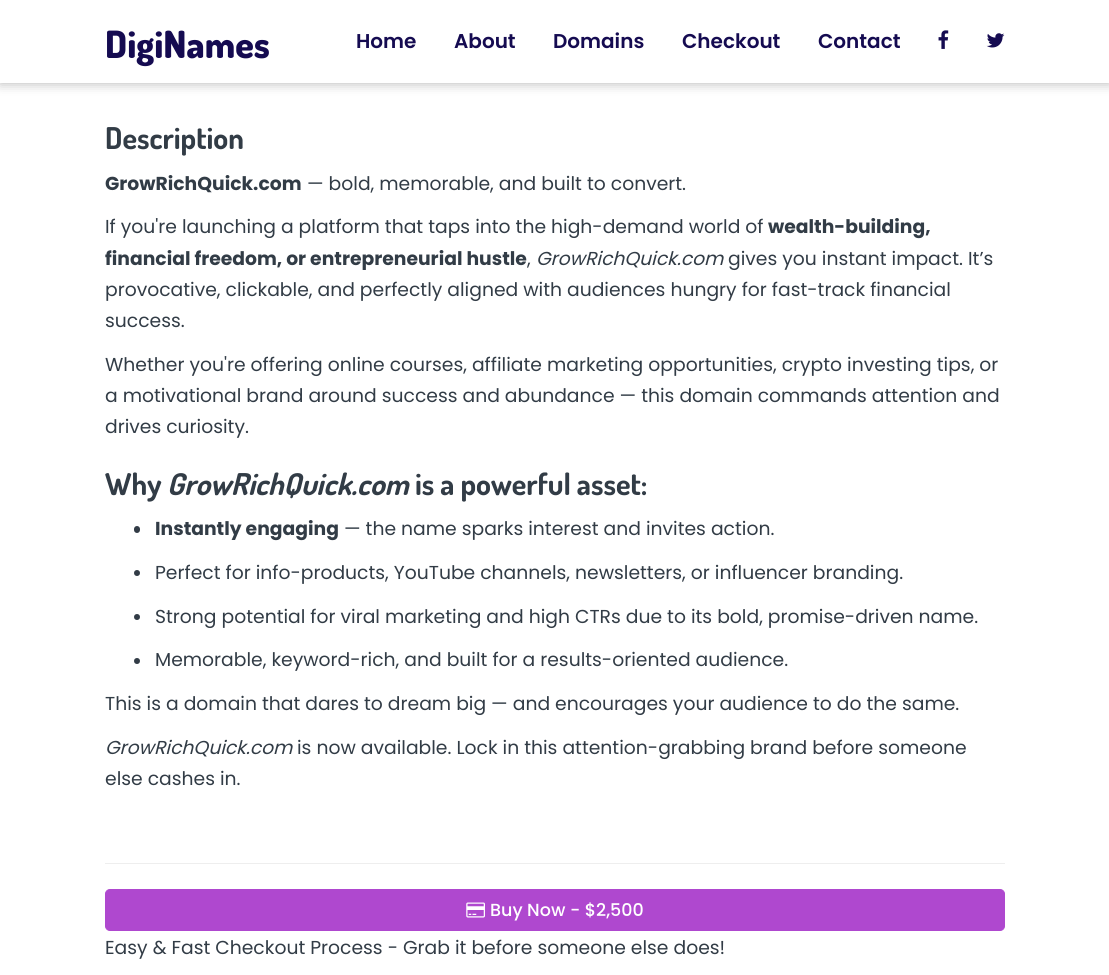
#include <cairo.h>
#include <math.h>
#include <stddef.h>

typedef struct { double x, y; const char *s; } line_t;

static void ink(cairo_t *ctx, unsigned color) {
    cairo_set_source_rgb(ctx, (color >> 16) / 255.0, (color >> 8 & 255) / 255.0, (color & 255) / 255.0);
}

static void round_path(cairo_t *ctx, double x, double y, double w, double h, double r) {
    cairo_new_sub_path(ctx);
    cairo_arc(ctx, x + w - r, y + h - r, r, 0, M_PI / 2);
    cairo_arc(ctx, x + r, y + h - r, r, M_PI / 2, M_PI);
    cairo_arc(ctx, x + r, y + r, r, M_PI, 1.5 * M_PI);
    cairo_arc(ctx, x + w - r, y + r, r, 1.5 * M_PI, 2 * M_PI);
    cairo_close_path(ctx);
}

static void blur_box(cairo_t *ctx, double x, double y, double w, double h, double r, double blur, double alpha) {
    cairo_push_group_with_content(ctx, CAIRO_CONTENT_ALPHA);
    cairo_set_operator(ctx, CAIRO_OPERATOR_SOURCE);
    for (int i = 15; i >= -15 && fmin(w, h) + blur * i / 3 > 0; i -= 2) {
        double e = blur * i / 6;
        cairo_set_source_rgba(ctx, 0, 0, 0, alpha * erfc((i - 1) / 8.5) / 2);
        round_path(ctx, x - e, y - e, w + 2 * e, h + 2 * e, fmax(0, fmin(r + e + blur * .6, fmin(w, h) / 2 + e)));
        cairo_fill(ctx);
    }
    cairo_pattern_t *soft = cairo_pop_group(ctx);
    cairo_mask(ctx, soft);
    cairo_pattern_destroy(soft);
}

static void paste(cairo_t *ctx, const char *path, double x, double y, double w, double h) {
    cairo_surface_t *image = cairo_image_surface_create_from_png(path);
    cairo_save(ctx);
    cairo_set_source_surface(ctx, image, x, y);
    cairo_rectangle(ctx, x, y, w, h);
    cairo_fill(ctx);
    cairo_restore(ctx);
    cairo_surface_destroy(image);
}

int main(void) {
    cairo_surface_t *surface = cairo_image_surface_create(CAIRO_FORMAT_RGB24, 1109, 975);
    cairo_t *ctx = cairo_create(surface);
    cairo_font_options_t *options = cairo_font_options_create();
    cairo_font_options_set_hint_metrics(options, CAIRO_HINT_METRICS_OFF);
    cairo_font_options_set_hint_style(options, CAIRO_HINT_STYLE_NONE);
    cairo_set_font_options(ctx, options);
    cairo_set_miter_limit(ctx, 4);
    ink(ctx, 0xFFFFFF);
    cairo_paint(ctx);
    ink(ctx, 0x000000);
    blur_box(ctx, 0, 0, 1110, 83, 0, 6, 0.3);
    ink(ctx, 0xFFFFFF);
    cairo_rectangle(ctx, 0, 0, 1109, 83);
    cairo_fill(ctx);
    cairo_select_font_face(ctx, "Dosis ExtraBold", CAIRO_FONT_SLANT_NORMAL, CAIRO_FONT_WEIGHT_NORMAL);
    cairo_set_font_size(ctx, 37.5);
    ink(ctx, 0x150B51);
    cairo_move_to(ctx, 105, 58);
    cairo_show_text(ctx, "DigiNames");
    cairo_select_font_face(ctx, "Poppins SemiBold", CAIRO_FONT_SLANT_NORMAL, CAIRO_FONT_WEIGHT_NORMAL);
    cairo_set_font_size(ctx, 20);
    {
        static const line_t items[] = {
            {356, 48, "Home"},
            {454, 48, "About"},
            {553, 48, "Domains"},
            {682, 48, "Checkout"},
            {818, 48, "Contact"},
        };
        for (size_t i = 0; i < sizeof items / sizeof *items; i++) {
            cairo_move_to(ctx, items[i].x, items[i].y);
            cairo_show_text(ctx, items[i].s);
        }
    }
    paste(ctx, "media/1.png", 938, 30, 11, 19);
    paste(ctx, "media/2.png", 986, 33, 19, 15);
    cairo_select_font_face(ctx, "Dosis", CAIRO_FONT_SLANT_NORMAL, CAIRO_FONT_WEIGHT_BOLD);
    cairo_set_font_size(ctx, 30);
    ink(ctx, 0x323C46);
    cairo_move_to(ctx, 105, 149);
    cairo_show_text(ctx, "Description");
    cairo_select_font_face(ctx, "Poppins", CAIRO_FONT_SLANT_NORMAL, CAIRO_FONT_WEIGHT_BOLD);
    cairo_set_font_size(ctx, 18.75);
    cairo_move_to(ctx, 105, 190);
    cairo_show_text(ctx, "GrowRichQuick.com");
    cairo_select_font_face(ctx, "Poppins", CAIRO_FONT_SLANT_NORMAL, CAIRO_FONT_WEIGHT_NORMAL);
    cairo_move_to(ctx, 307, 190);
    cairo_show_text(ctx, "— bold, memorable, and built to convert.");
    cairo_move_to(ctx, 105, 233);
    cairo_show_text(ctx, "If you're launching a platform that taps into the high-demand world of");
    cairo_select_font_face(ctx, "Poppins", CAIRO_FONT_SLANT_NORMAL, CAIRO_FONT_WEIGHT_BOLD);
    cairo_move_to(ctx, 768, 233);
    cairo_show_text(ctx, "wealth-building,");
    cairo_move_to(ctx, 105, 265);
    cairo_show_text(ctx, "financial freedom, or entrepreneurial hustle");
    cairo_select_font_face(ctx, "Poppins", CAIRO_FONT_SLANT_NORMAL, CAIRO_FONT_WEIGHT_NORMAL);
    cairo_move_to(ctx, 527, 265);
    cairo_show_text(ctx, ",");
    cairo_select_font_face(ctx, "Poppins", CAIRO_FONT_SLANT_ITALIC, CAIRO_FONT_WEIGHT_NORMAL);
    cairo_move_to(ctx, 536, 265);
    cairo_show_text(ctx, "GrowRichQuick.com");
    cairo_select_font_face(ctx, "Poppins", CAIRO_FONT_SLANT_NORMAL, CAIRO_FONT_WEIGHT_NORMAL);
    {
        static const line_t items[] = {
            {728, 265, "gives you instant impact. It’s"},
            {105, 296, "provocative, clickable, and perfectly aligned with audiences hungry for fast-track financial"},
            {105, 327, "success."},
            {105, 371, "Whether you're offering online courses, affiliate marketing opportunities, crypto investing tips, or"},
            {105, 402, "a motivational brand around success and abundance — this domain commands attention and"},
            {105, 433, "drives curiosity."},
        };
        for (size_t i = 0; i < sizeof items / sizeof *items; i++) {
            cairo_move_to(ctx, items[i].x, items[i].y);
            cairo_show_text(ctx, items[i].s);
        }
    }
    cairo_select_font_face(ctx, "Dosis", CAIRO_FONT_SLANT_NORMAL, CAIRO_FONT_WEIGHT_BOLD);
    cairo_set_font_size(ctx, 30);
    cairo_move_to(ctx, 105, 495);
    cairo_show_text(ctx, "Why");
    cairo_select_font_face(ctx, "Dosis", CAIRO_FONT_SLANT_ITALIC, CAIRO_FONT_WEIGHT_BOLD);
    cairo_move_to(ctx, 167, 495);
    cairo_show_text(ctx, "GrowRichQuick.com");
    cairo_select_font_face(ctx, "Dosis", CAIRO_FONT_SLANT_NORMAL, CAIRO_FONT_WEIGHT_BOLD);
    cairo_move_to(ctx, 415, 495);
    cairo_show_text(ctx, "is a powerful asset:");
    round_path(ctx, 134, 526, 6, 7, 3);
    cairo_fill(ctx);
    cairo_select_font_face(ctx, "Poppins", CAIRO_FONT_SLANT_NORMAL, CAIRO_FONT_WEIGHT_BOLD);
    cairo_set_font_size(ctx, 18.75);
    cairo_move_to(ctx, 155, 535);
    cairo_show_text(ctx, "Instantly engaging");
    cairo_select_font_face(ctx, "Poppins", CAIRO_FONT_SLANT_NORMAL, CAIRO_FONT_WEIGHT_NORMAL);
    cairo_move_to(ctx, 344, 535);
    cairo_show_text(ctx, "— the name sparks interest and invites action.");
    cairo_new_path(ctx);
    cairo_arc(ctx, 137, 573, 3, 0, 2 * M_PI);
    cairo_fill(ctx);
    cairo_move_to(ctx, 155, 579);
    cairo_show_text(ctx, "Perfect for info-products, YouTube channels, newsletters, or influencer branding.");
    cairo_new_path(ctx);
    cairo_arc(ctx, 137, 617, 3, 0, 2 * M_PI);
    cairo_fill(ctx);
    cairo_move_to(ctx, 155, 623);
    cairo_show_text(ctx, "Strong potential for viral marketing and high CTRs due to its bold, promise-driven name.");
    cairo_new_path(ctx);
    cairo_arc(ctx, 137, 661, 3, 0, 2 * M_PI);
    cairo_fill(ctx);
    cairo_move_to(ctx, 155, 666);
    cairo_show_text(ctx, "Memorable, keyword-rich, and built for a results-oriented audience.");
    cairo_move_to(ctx, 105, 710);
    cairo_show_text(ctx, "This is a domain that dares to dream big — and encourages your audience to do the same.");
    cairo_select_font_face(ctx, "Poppins", CAIRO_FONT_SLANT_ITALIC, CAIRO_FONT_WEIGHT_NORMAL);
    cairo_move_to(ctx, 105, 754);
    cairo_show_text(ctx, "GrowRichQuick.com");
    cairo_select_font_face(ctx, "Poppins", CAIRO_FONT_SLANT_NORMAL, CAIRO_FONT_WEIGHT_NORMAL);
    cairo_move_to(ctx, 297, 754);
    cairo_show_text(ctx, "is now available. Lock in this attention-grabbing brand before someone");
    cairo_move_to(ctx, 105, 785);
    cairo_show_text(ctx, "else cashes in.");
    ink(ctx, 0xEEEEEE);
    cairo_rectangle(ctx, 105, 863, 900, 1);
    cairo_fill(ctx);
    ink(ctx, 0xAF48CF);
    round_path(ctx, 105.5, 889.5, 899, 41, 4.5);
    cairo_fill_preserve(ctx);
    cairo_set_line_width(ctx, 1);
    cairo_stroke(ctx);
    paste(ctx, "media/3.png", 466, 902, 19, 16);
    cairo_select_font_face(ctx, "Poppins Medium", CAIRO_FONT_SLANT_NORMAL, CAIRO_FONT_WEIGHT_NORMAL);
    cairo_set_font_size(ctx, 17.5);
    ink(ctx, 0xFFFFFF);
    cairo_move_to(ctx, 490, 916);
    cairo_show_text(ctx, "Buy Now - $2,500");
    cairo_select_font_face(ctx, "Poppins", CAIRO_FONT_SLANT_NORMAL, CAIRO_FONT_WEIGHT_NORMAL);
    cairo_set_font_size(ctx, 18.75);
    ink(ctx, 0x323C46);
    cairo_move_to(ctx, 105, 954);
    cairo_show_text(ctx, "Easy & Fast Checkout Process - Grab it before someone else does!");
    cairo_surface_write_to_png(surface, "image.png");
    cairo_font_options_destroy(options);
    cairo_destroy(ctx);
    cairo_surface_destroy(surface);
    return 0;
}
